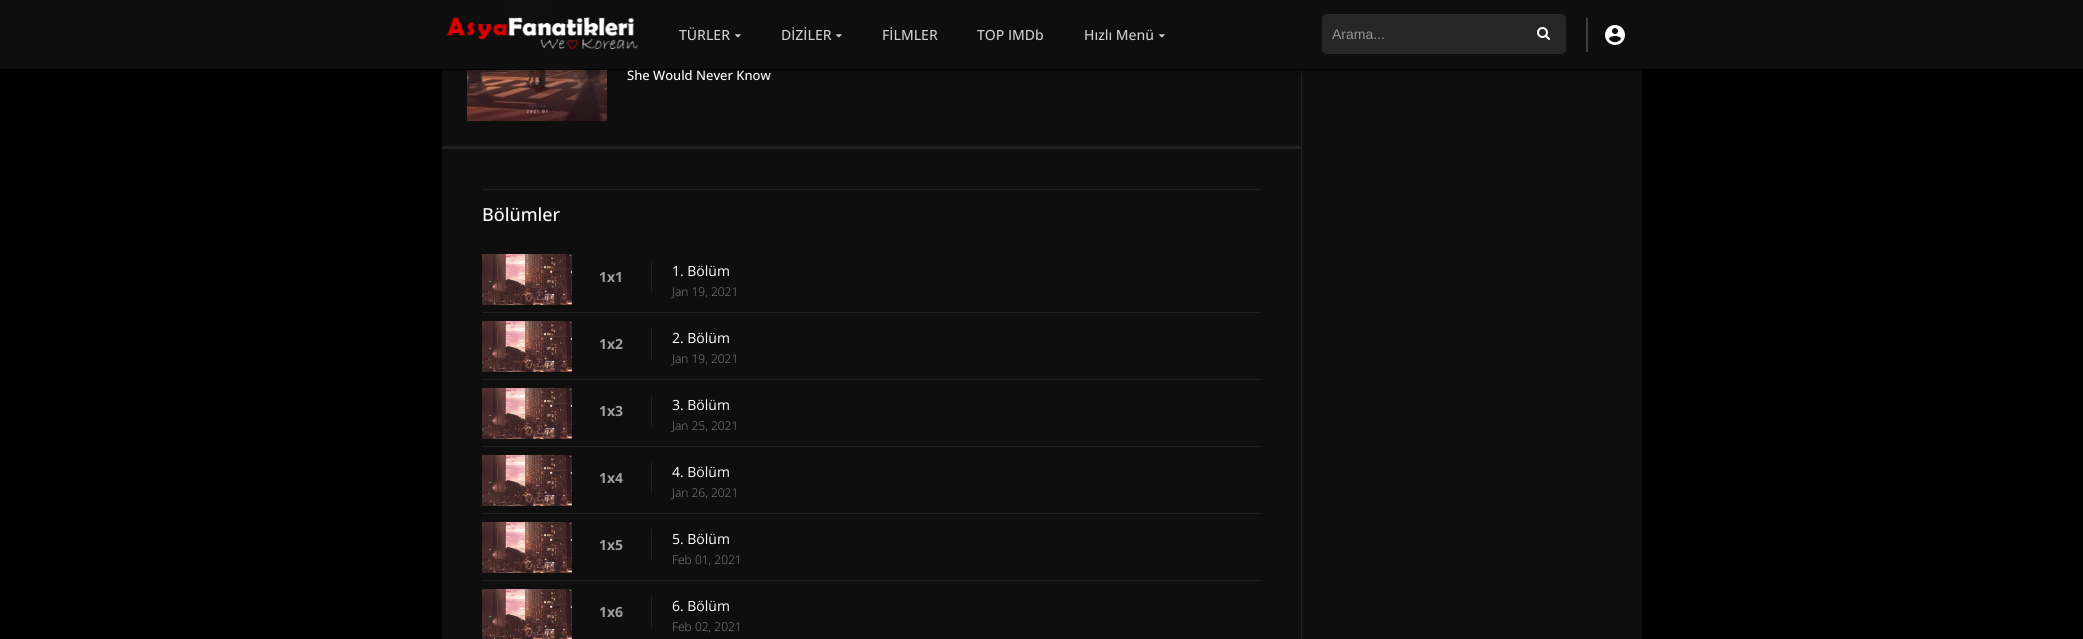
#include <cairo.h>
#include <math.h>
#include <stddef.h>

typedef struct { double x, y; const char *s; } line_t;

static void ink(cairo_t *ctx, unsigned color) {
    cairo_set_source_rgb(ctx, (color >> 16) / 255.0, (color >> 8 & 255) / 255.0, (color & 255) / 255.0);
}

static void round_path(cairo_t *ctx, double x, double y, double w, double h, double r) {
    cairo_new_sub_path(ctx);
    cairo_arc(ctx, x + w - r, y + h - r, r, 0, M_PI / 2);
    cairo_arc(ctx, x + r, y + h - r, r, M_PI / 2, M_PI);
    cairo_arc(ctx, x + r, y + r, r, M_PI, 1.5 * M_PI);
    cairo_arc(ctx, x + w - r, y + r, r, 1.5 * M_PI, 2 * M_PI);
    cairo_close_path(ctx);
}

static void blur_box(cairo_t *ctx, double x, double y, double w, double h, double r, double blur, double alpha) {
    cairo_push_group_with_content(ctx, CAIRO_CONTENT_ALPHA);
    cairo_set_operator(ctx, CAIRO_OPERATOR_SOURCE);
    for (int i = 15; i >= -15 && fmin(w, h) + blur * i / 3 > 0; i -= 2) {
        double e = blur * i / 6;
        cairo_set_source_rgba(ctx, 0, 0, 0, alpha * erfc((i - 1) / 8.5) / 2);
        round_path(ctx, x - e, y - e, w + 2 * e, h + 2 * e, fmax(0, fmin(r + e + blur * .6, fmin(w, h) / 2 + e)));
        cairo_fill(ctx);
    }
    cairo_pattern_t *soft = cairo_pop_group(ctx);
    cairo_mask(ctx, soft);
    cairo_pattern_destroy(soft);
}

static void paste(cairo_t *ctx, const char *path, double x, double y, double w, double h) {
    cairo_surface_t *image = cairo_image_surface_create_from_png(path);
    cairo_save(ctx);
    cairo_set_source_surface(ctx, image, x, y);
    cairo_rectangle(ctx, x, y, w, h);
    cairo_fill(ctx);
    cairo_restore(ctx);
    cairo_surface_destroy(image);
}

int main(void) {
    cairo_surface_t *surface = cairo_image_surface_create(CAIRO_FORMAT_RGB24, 2083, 639);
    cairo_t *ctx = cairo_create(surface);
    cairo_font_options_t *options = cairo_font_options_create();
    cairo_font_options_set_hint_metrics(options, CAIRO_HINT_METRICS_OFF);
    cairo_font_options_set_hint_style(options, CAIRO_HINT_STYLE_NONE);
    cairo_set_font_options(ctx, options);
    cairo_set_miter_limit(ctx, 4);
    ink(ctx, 0x000000);
    cairo_paint(ctx);
    ink(ctx, 0x0E0E0E);
    cairo_rectangle(ctx, 442, 0, 1200, 639);
    cairo_fill(ctx);
    ink(ctx, 0x212121);
    cairo_rectangle(ctx, 1301, 0, 1, 639);
    cairo_fill(ctx);
    paste(ctx, "media/6.png", 467, 0, 140, 121);
    cairo_rectangle(ctx, 627, 53, 649, 1);
    cairo_fill(ctx);
    round_path(ctx, 627, -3, 60, 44, 3);
    cairo_fill(ctx);
    paste(ctx, "media/7.png", 698, 27, 10, 10);
    paste(ctx, "media/8.png", 699, 2, 18, 17);
    paste(ctx, "media/8.png", 724, 2, 18, 17);
    paste(ctx, "media/8.png", 749, 2, 18, 17);
    paste(ctx, "media/8.png", 774, 2, 18, 17);
    paste(ctx, "media/8.png", 799, 2, 18, 17);
    paste(ctx, "media/8.png", 824, 2, 18, 17);
    paste(ctx, "media/8.png", 849, 2, 18, 17);
    paste(ctx, "media/8.png", 874, 2, 18, 17);
    paste(ctx, "media/8.png", 900, 2, 18, 17);
    paste(ctx, "media/8.png", 925, 2, 18, 17);
    ink(ctx, 0x3E3E3E);
    round_path(ctx, 955, 1, 84, 22, 3);
    cairo_fill(ctx);
    cairo_save(ctx);
    cairo_rectangle(ctx, 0, 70, 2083, 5);
    cairo_clip(ctx);
    ink(ctx, 0x000000);
    blur_box(ctx, 0, 1, 2083, 70, 0, 2.5, 0.4);
    cairo_restore(ctx);
    cairo_set_source_rgba(ctx, 0.059, 0.059, 0.059, 0.99);
    cairo_rectangle(ctx, 0, 0, 2083, 69);
    cairo_fill(ctx);
    ink(ctx, 0x000000);
    cairo_rectangle(ctx, 442, 69, 1200, 1);
    cairo_fill(ctx);
    paste(ctx, "media/1.png", 446, 17, 192, 32);
    cairo_select_font_face(ctx, "Open Sans Medium", CAIRO_FONT_SLANT_NORMAL, CAIRO_FONT_WEIGHT_NORMAL);
    cairo_set_font_size(ctx, 14);
    ink(ctx, 0xCFCFCF);
    cairo_move_to(ctx, 679, 40);
    cairo_show_text(ctx, "TÜRLER");
    paste(ctx, "media/2.png", 735, 34, 6, 4);
    cairo_move_to(ctx, 781, 40);
    cairo_show_text(ctx, "DİZİLER");
    paste(ctx, "media/3.png", 836, 34, 6, 4);
    {
        static const line_t items[] = {
            {882, 40, "FİLMLER"},
            {977, 40, "TOP IMDb"},
            {1084, 40, "Hızlı Menü"},
        };
        for (size_t i = 0; i < sizeof items / sizeof *items; i++) {
            cairo_move_to(ctx, items[i].x, items[i].y);
            cairo_show_text(ctx, items[i].s);
        }
    }
    paste(ctx, "media/3.png", 1159, 34, 6, 4);
    ink(ctx, 0x272727);
    round_path(ctx, 1322, 14, 244, 40, 5);
    cairo_fill(ctx);
    cairo_select_font_face(ctx, "Liberation Sans", CAIRO_FONT_SLANT_NORMAL, CAIRO_FONT_WEIGHT_NORMAL);
    ink(ctx, 0x939393);
    cairo_move_to(ctx, 1332, 39);
    cairo_show_text(ctx, "Arama...");
    paste(ctx, "media/4.png", 1537, 27, 13, 13);
    ink(ctx, 0x3F3F3F);
    cairo_rectangle(ctx, 1586, 18, 2, 34);
    cairo_fill(ctx);
    paste(ctx, "media/5.png", 1605, 25, 20, 20);
    ink(ctx, 0x212121);
    cairo_rectangle(ctx, 442, 146, 859, 3);
    cairo_fill(ctx);
    cairo_select_font_face(ctx, "Open Sans Medium", CAIRO_FONT_SLANT_NORMAL, CAIRO_FONT_WEIGHT_NORMAL);
    cairo_set_font_size(ctx, 13);
    ink(ctx, 0xFFFFFF);
    cairo_move_to(ctx, 627, 80);
    cairo_show_text(ctx, "She Would Never Know");
    ink(ctx, 0x212121);
    cairo_rectangle(ctx, 482, 189, 779, 1);
    cairo_fill(ctx);
    cairo_set_font_size(ctx, 18);
    ink(ctx, 0xFFFFFF);
    cairo_move_to(ctx, 482, 221);
    cairo_show_text(ctx, "Bölümler");
    ink(ctx, 0x212121);
    cairo_rectangle(ctx, 482, 312, 779, 1);
    cairo_fill(ctx);
    paste(ctx, "media/9.png", 482, 254, 90, 51);
    cairo_rectangle(ctx, 651, 261, 1, 32);
    cairo_fill(ctx);
    cairo_select_font_face(ctx, "Open Sans", CAIRO_FONT_SLANT_NORMAL, CAIRO_FONT_WEIGHT_BOLD);
    cairo_set_font_size(ctx, 14);
    ink(ctx, 0x9F9F9F);
    cairo_move_to(ctx, 599, 282);
    cairo_show_text(ctx, "1x1");
    cairo_select_font_face(ctx, "Open Sans", CAIRO_FONT_SLANT_NORMAL, CAIRO_FONT_WEIGHT_NORMAL);
    ink(ctx, 0xFFFFFF);
    cairo_move_to(ctx, 672, 276);
    cairo_show_text(ctx, "1. Bölüm");
    cairo_select_font_face(ctx, "Open Sans Light", CAIRO_FONT_SLANT_NORMAL, CAIRO_FONT_WEIGHT_NORMAL);
    cairo_set_font_size(ctx, 12);
    ink(ctx, 0x878787);
    cairo_move_to(ctx, 672, 296);
    cairo_show_text(ctx, "Jan 19, 2021");
    ink(ctx, 0x212121);
    cairo_rectangle(ctx, 482, 379, 779, 1);
    cairo_fill(ctx);
    paste(ctx, "media/9.png", 482, 321, 90, 51);
    cairo_rectangle(ctx, 651, 328, 1, 32);
    cairo_fill(ctx);
    cairo_select_font_face(ctx, "Open Sans", CAIRO_FONT_SLANT_NORMAL, CAIRO_FONT_WEIGHT_BOLD);
    cairo_set_font_size(ctx, 14);
    ink(ctx, 0x9F9F9F);
    cairo_move_to(ctx, 599, 349);
    cairo_show_text(ctx, "1x2");
    cairo_select_font_face(ctx, "Open Sans", CAIRO_FONT_SLANT_NORMAL, CAIRO_FONT_WEIGHT_NORMAL);
    ink(ctx, 0xFFFFFF);
    cairo_move_to(ctx, 672, 343);
    cairo_show_text(ctx, "2. Bölüm");
    cairo_select_font_face(ctx, "Open Sans Light", CAIRO_FONT_SLANT_NORMAL, CAIRO_FONT_WEIGHT_NORMAL);
    cairo_set_font_size(ctx, 12);
    ink(ctx, 0x878787);
    cairo_move_to(ctx, 672, 363);
    cairo_show_text(ctx, "Jan 19, 2021");
    ink(ctx, 0x212121);
    cairo_rectangle(ctx, 482, 446, 779, 1);
    cairo_fill(ctx);
    paste(ctx, "media/10.png", 482, 388, 90, 51);
    cairo_rectangle(ctx, 651, 395, 1, 32);
    cairo_fill(ctx);
    cairo_select_font_face(ctx, "Open Sans", CAIRO_FONT_SLANT_NORMAL, CAIRO_FONT_WEIGHT_BOLD);
    cairo_set_font_size(ctx, 14);
    ink(ctx, 0x9F9F9F);
    cairo_move_to(ctx, 599, 416);
    cairo_show_text(ctx, "1x3");
    cairo_select_font_face(ctx, "Open Sans", CAIRO_FONT_SLANT_NORMAL, CAIRO_FONT_WEIGHT_NORMAL);
    ink(ctx, 0xFFFFFF);
    cairo_move_to(ctx, 672, 410);
    cairo_show_text(ctx, "3. Bölüm");
    cairo_select_font_face(ctx, "Open Sans Light", CAIRO_FONT_SLANT_NORMAL, CAIRO_FONT_WEIGHT_NORMAL);
    cairo_set_font_size(ctx, 12);
    ink(ctx, 0x878787);
    cairo_move_to(ctx, 672, 430);
    cairo_show_text(ctx, "Jan 25, 2021");
    ink(ctx, 0x212121);
    cairo_rectangle(ctx, 482, 513, 779, 1);
    cairo_fill(ctx);
    paste(ctx, "media/11.png", 482, 455, 90, 51);
    cairo_rectangle(ctx, 651, 462, 1, 32);
    cairo_fill(ctx);
    cairo_select_font_face(ctx, "Open Sans", CAIRO_FONT_SLANT_NORMAL, CAIRO_FONT_WEIGHT_BOLD);
    cairo_set_font_size(ctx, 14);
    ink(ctx, 0x9F9F9F);
    cairo_move_to(ctx, 599, 483);
    cairo_show_text(ctx, "1x4");
    cairo_select_font_face(ctx, "Open Sans", CAIRO_FONT_SLANT_NORMAL, CAIRO_FONT_WEIGHT_NORMAL);
    ink(ctx, 0xFFFFFF);
    cairo_move_to(ctx, 672, 477);
    cairo_show_text(ctx, "4. Bölüm");
    cairo_select_font_face(ctx, "Open Sans Light", CAIRO_FONT_SLANT_NORMAL, CAIRO_FONT_WEIGHT_NORMAL);
    cairo_set_font_size(ctx, 12);
    ink(ctx, 0x878787);
    cairo_move_to(ctx, 672, 497);
    cairo_show_text(ctx, "Jan 26, 2021");
    ink(ctx, 0x212121);
    cairo_rectangle(ctx, 482, 580, 779, 1);
    cairo_fill(ctx);
    paste(ctx, "media/9.png", 482, 522, 90, 51);
    cairo_rectangle(ctx, 651, 529, 1, 32);
    cairo_fill(ctx);
    cairo_select_font_face(ctx, "Open Sans", CAIRO_FONT_SLANT_NORMAL, CAIRO_FONT_WEIGHT_BOLD);
    cairo_set_font_size(ctx, 14);
    ink(ctx, 0x9F9F9F);
    cairo_move_to(ctx, 599, 550);
    cairo_show_text(ctx, "1x5");
    cairo_select_font_face(ctx, "Open Sans", CAIRO_FONT_SLANT_NORMAL, CAIRO_FONT_WEIGHT_NORMAL);
    ink(ctx, 0xFFFFFF);
    cairo_move_to(ctx, 672, 544);
    cairo_show_text(ctx, "5. Bölüm");
    cairo_select_font_face(ctx, "Open Sans Light", CAIRO_FONT_SLANT_NORMAL, CAIRO_FONT_WEIGHT_NORMAL);
    cairo_set_font_size(ctx, 12);
    ink(ctx, 0x878787);
    cairo_move_to(ctx, 672, 564);
    cairo_show_text(ctx, "Feb 01, 2021");
    paste(ctx, "media/12.png", 482, 589, 90, 50);
    ink(ctx, 0x212121);
    cairo_rectangle(ctx, 651, 596, 1, 32);
    cairo_fill(ctx);
    cairo_select_font_face(ctx, "Open Sans", CAIRO_FONT_SLANT_NORMAL, CAIRO_FONT_WEIGHT_BOLD);
    cairo_set_font_size(ctx, 14);
    ink(ctx, 0x9F9F9F);
    cairo_move_to(ctx, 599, 617);
    cairo_show_text(ctx, "1x6");
    cairo_select_font_face(ctx, "Open Sans", CAIRO_FONT_SLANT_NORMAL, CAIRO_FONT_WEIGHT_NORMAL);
    ink(ctx, 0xFFFFFF);
    cairo_move_to(ctx, 672, 611);
    cairo_show_text(ctx, "6. Bölüm");
    cairo_select_font_face(ctx, "Open Sans Light", CAIRO_FONT_SLANT_NORMAL, CAIRO_FONT_WEIGHT_NORMAL);
    cairo_set_font_size(ctx, 12);
    ink(ctx, 0x878787);
    cairo_move_to(ctx, 672, 631);
    cairo_show_text(ctx, "Feb 02, 2021");
    cairo_surface_write_to_png(surface, "image.png");
    cairo_font_options_destroy(options);
    cairo_destroy(ctx);
    cairo_surface_destroy(surface);
    return 0;
}
